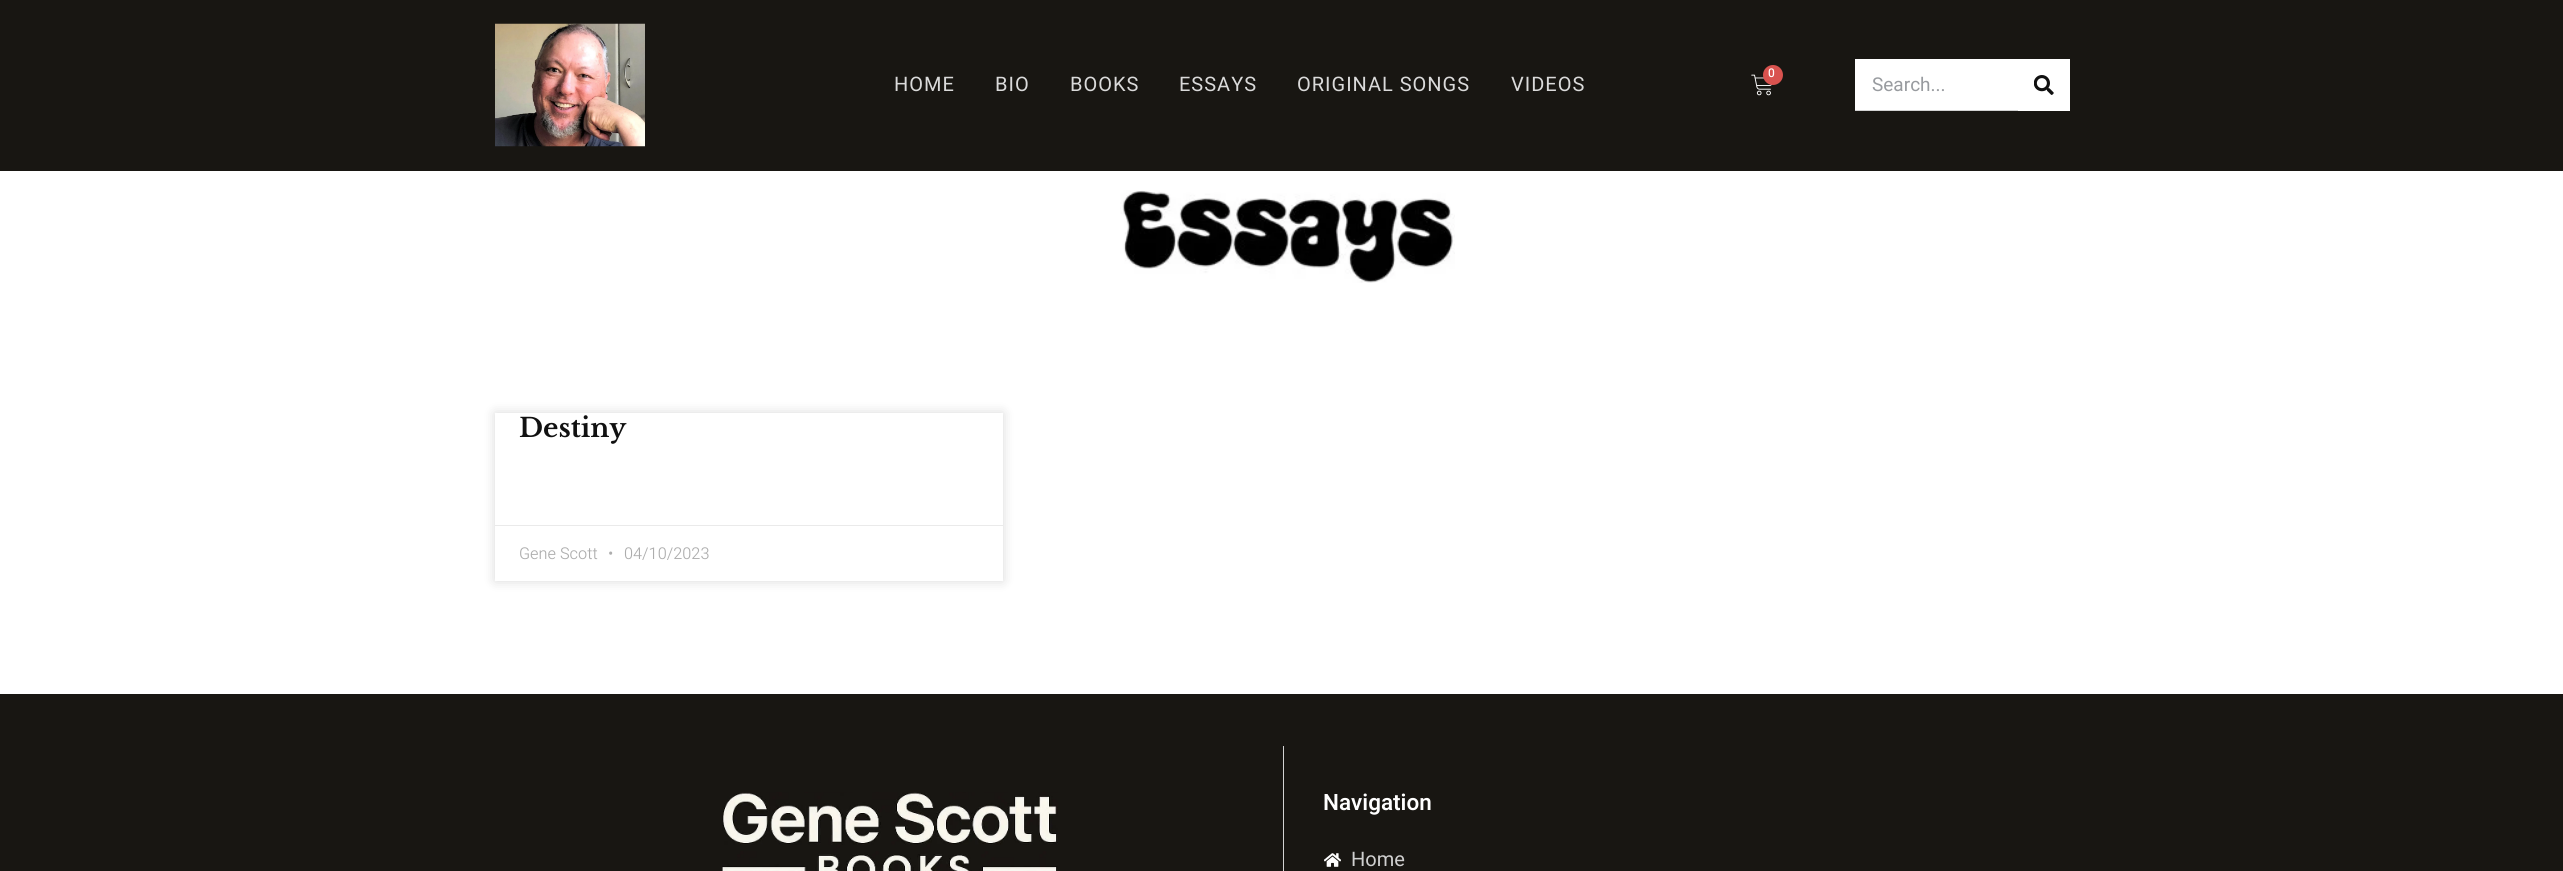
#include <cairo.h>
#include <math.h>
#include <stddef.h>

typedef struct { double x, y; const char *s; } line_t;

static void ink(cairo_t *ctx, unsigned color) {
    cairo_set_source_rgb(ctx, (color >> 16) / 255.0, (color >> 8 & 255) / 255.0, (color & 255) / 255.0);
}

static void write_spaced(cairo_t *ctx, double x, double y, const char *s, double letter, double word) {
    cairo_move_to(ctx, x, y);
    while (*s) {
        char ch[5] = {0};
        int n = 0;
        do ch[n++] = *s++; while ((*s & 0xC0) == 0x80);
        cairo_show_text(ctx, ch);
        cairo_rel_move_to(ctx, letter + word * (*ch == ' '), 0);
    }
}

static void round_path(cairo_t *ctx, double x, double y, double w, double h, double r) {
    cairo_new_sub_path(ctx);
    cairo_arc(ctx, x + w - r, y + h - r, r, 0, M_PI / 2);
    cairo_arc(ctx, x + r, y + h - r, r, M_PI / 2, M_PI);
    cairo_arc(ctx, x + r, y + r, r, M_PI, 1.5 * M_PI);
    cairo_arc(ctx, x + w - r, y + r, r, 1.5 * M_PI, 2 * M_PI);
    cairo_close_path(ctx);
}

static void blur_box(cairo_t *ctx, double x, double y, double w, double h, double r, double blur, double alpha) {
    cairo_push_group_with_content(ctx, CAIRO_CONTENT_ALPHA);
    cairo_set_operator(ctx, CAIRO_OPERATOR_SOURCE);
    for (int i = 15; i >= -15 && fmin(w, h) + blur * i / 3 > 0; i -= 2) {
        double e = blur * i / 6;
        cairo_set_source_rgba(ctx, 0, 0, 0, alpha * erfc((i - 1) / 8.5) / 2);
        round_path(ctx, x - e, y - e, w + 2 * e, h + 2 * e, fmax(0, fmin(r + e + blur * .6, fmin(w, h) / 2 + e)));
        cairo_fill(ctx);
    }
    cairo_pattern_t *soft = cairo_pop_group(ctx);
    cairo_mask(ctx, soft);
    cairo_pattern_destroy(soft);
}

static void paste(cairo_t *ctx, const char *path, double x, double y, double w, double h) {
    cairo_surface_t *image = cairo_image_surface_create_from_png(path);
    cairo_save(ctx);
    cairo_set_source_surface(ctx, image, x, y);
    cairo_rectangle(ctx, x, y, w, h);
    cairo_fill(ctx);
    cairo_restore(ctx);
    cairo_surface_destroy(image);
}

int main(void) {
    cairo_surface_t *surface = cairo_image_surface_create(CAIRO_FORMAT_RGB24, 2563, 871);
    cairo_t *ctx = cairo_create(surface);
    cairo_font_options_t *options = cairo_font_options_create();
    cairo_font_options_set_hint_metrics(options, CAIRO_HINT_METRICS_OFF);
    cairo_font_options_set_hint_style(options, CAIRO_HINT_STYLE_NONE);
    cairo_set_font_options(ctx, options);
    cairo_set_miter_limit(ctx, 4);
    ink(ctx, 0xFFFFFF);
    cairo_paint(ctx);
    ink(ctx, 0x181612);
    cairo_rectangle(ctx, 0, 0, 2563, 171);
    cairo_fill(ctx);
    paste(ctx, "media/1.png", 495, 23, 150, 124);
    paste(ctx, "media/2.png", 1751, 74, 21, 22);
    ink(ctx, 0xD9534F);
    cairo_arc(ctx, 1773, 75, 10, 0, 2 * M_PI);
    cairo_fill(ctx);
    cairo_select_font_face(ctx, "Heebo Medium", CAIRO_FONT_SLANT_NORMAL, CAIRO_FONT_WEIGHT_NORMAL);
    cairo_set_font_size(ctx, 12);
    ink(ctx, 0xFFFFFF);
    cairo_move_to(ctx, 1768, 77);
    cairo_show_text(ctx, "0");
    cairo_select_font_face(ctx, "Heebo", CAIRO_FONT_SLANT_NORMAL, CAIRO_FONT_WEIGHT_NORMAL);
    cairo_set_font_size(ctx, 20);
    ink(ctx, 0xDADADA);
    {
        static const line_t items[] = {
            {894, 91, "HOME"},
            {995, 91, "BIO"},
            {1070, 91, "BOOKS"},
            {1179, 91, "ESSAYS"},
            {1297, 91, "ORIGINAL SONGS"},
            {1511, 91, "VIDEOS"},
        };
        for (size_t i = 0; i < sizeof items / sizeof *items; i++) {
            write_spaced(ctx, items[i].x, items[i].y, items[i].s, 1, 0);
        }
    }
    ink(ctx, 0xFFFFFF);
    cairo_rectangle(ctx, 1855, 59, 163, 51);
    cairo_fill(ctx);
    ink(ctx, 0xD2D2D2);
    cairo_rectangle(ctx, 1855, 110, 163, 1);
    cairo_fill(ctx);
    cairo_set_font_size(ctx, 19);
    ink(ctx, 0x989B9F);
    cairo_move_to(ctx, 1872, 91);
    cairo_show_text(ctx, "Search...");
    ink(ctx, 0xFFFFFF);
    cairo_rectangle(ctx, 2018, 59, 52, 52);
    cairo_fill(ctx);
    paste(ctx, "media/3.png", 2034, 75, 20, 20);
    paste(ctx, "media/4.png", 1120, 190, 335, 93);
    ink(ctx, 0x000000);
    blur_box(ctx, 495, 413, 508, 168, 0, 6, 0.15);
    ink(ctx, 0xFFFFFF);
    cairo_rectangle(ctx, 495, 413, 508, 168);
    cairo_fill(ctx);
    cairo_select_font_face(ctx, "Libre Baskerville", CAIRO_FONT_SLANT_NORMAL, CAIRO_FONT_WEIGHT_BOLD);
    cairo_set_font_size(ctx, 26.25);
    ink(ctx, 0x111111);
    cairo_move_to(ctx, 519, 437);
    cairo_show_text(ctx, "Destiny");
    ink(ctx, 0xEAEAEA);
    cairo_rectangle(ctx, 495, 525, 508, 1);
    cairo_fill(ctx);
    cairo_select_font_face(ctx, "Heebo Light", CAIRO_FONT_SLANT_NORMAL, CAIRO_FONT_WEIGHT_NORMAL);
    cairo_set_font_size(ctx, 16.25);
    ink(ctx, 0xADADAD);
    {
        static const line_t items[] = {
            {519, 559, "Gene Scott"},
            {608, 559, "•"},
            {624, 559, "04/10/2023"},
        };
        for (size_t i = 0; i < sizeof items / sizeof *items; i++) {
            cairo_move_to(ctx, items[i].x, items[i].y);
            cairo_show_text(ctx, items[i].s);
        }
    }
    ink(ctx, 0x181612);
    cairo_rectangle(ctx, 0, 694, 2563, 177);
    cairo_fill(ctx);
    paste(ctx, "media/5.png", 722, 792, 336, 79);
    ink(ctx, 0xD2D2D2);
    cairo_rectangle(ctx, 1283, 746, 1, 125);
    cairo_fill(ctx);
    cairo_select_font_face(ctx, "Heebo SemiBold", CAIRO_FONT_SLANT_NORMAL, CAIRO_FONT_WEIGHT_NORMAL);
    cairo_set_font_size(ctx, 22.5);
    ink(ctx, 0xFFFFFF);
    cairo_move_to(ctx, 1323, 810);
    cairo_show_text(ctx, "Navigation");
    paste(ctx, "media/6.png", 1324, 853, 17, 14);
    cairo_select_font_face(ctx, "Heebo", CAIRO_FONT_SLANT_NORMAL, CAIRO_FONT_WEIGHT_NORMAL);
    cairo_set_font_size(ctx, 20);
    ink(ctx, 0xCFCFCF);
    cairo_move_to(ctx, 1351, 866);
    cairo_show_text(ctx, "Home");
    cairo_surface_write_to_png(surface, "image.png");
    cairo_font_options_destroy(options);
    cairo_destroy(ctx);
    cairo_surface_destroy(surface);
    return 0;
}
